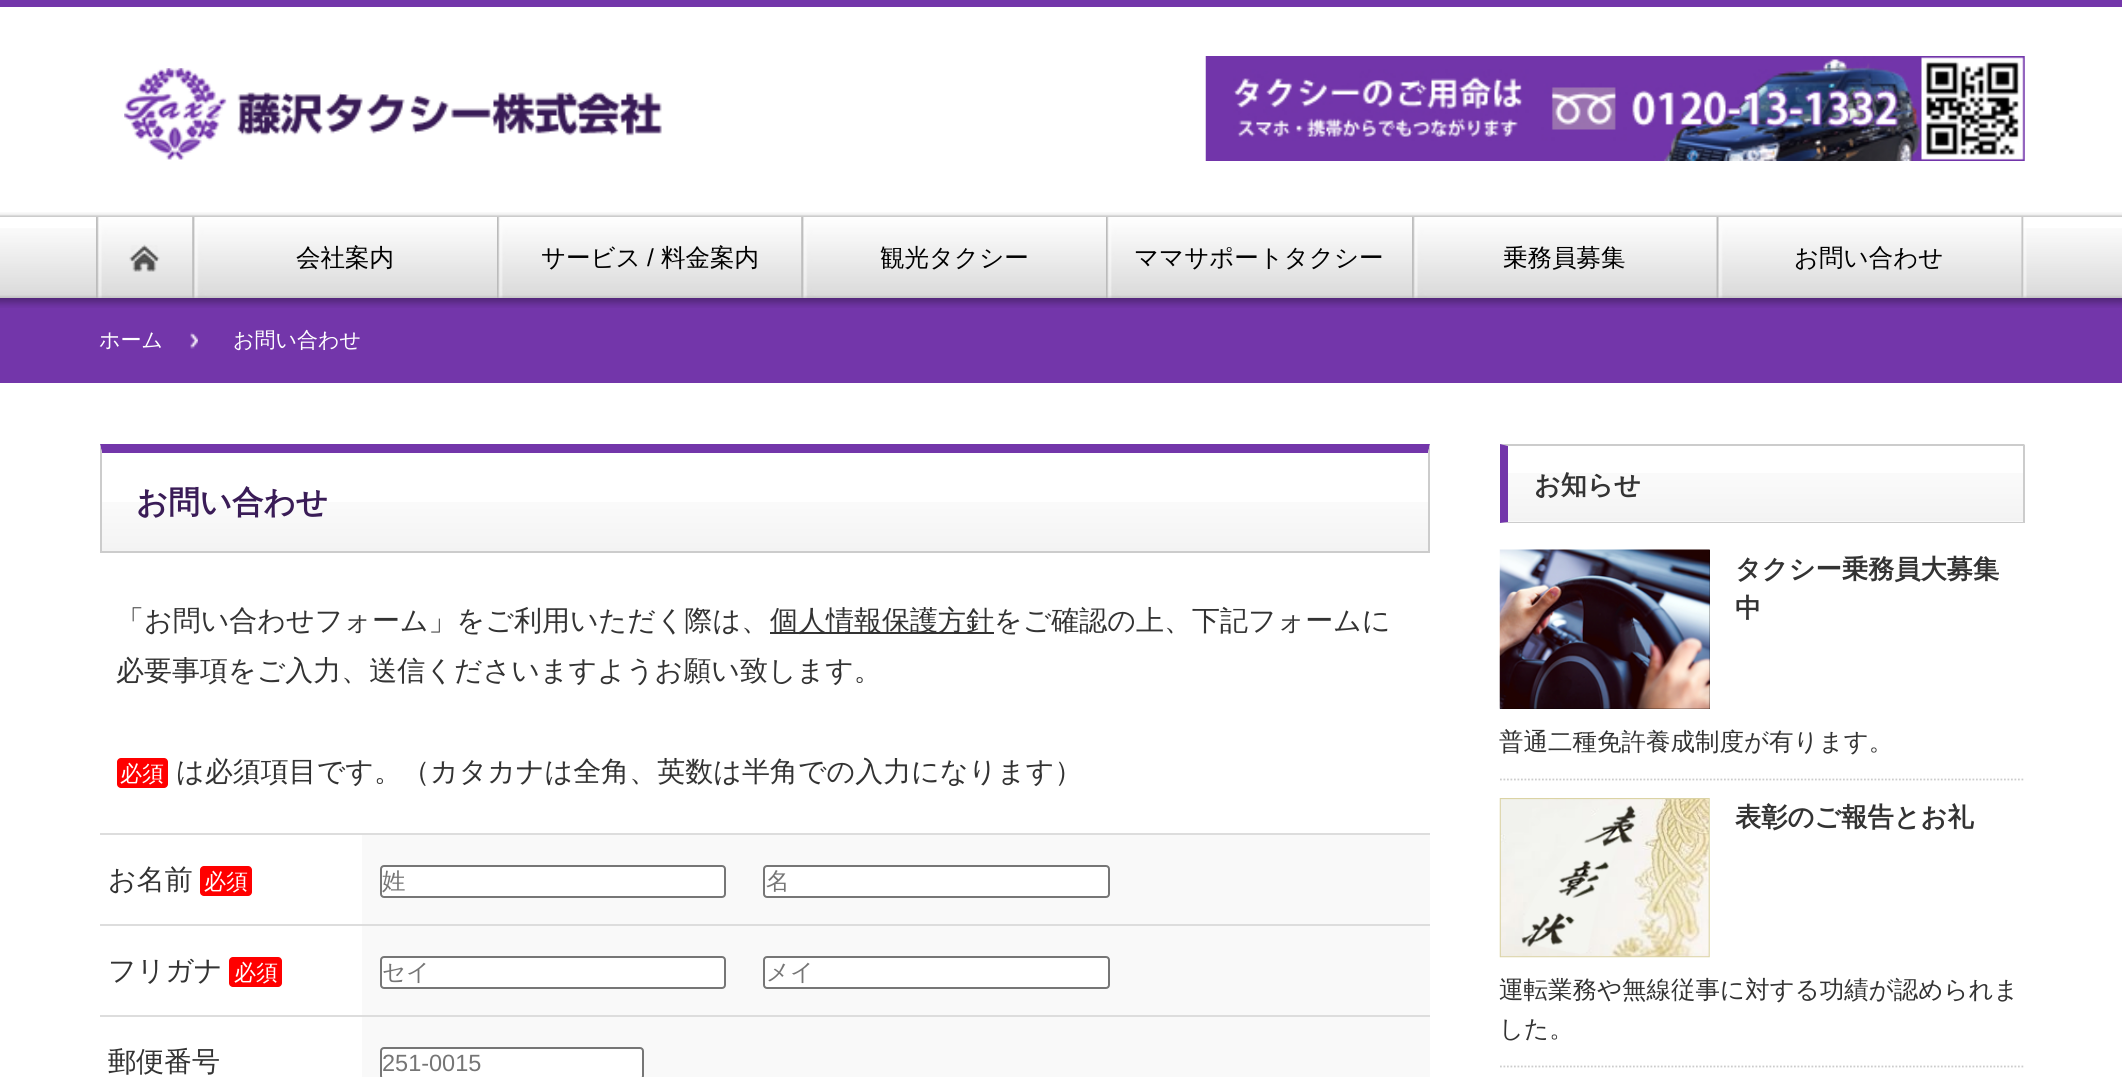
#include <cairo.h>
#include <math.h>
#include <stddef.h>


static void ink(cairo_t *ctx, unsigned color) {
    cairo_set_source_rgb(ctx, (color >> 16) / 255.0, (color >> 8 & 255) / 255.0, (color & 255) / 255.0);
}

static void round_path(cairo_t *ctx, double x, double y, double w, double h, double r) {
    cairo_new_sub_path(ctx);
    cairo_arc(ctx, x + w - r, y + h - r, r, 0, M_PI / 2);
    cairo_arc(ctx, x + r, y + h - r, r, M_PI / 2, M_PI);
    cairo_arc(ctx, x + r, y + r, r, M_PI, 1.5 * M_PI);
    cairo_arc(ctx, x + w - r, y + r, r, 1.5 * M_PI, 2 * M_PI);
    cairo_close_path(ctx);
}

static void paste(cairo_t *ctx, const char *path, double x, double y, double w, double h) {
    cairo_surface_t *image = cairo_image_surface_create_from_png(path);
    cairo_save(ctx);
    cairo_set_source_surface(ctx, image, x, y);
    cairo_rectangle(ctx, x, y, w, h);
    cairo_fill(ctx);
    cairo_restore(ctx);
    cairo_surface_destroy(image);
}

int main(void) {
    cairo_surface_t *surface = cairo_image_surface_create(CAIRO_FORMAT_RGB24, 2122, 1077);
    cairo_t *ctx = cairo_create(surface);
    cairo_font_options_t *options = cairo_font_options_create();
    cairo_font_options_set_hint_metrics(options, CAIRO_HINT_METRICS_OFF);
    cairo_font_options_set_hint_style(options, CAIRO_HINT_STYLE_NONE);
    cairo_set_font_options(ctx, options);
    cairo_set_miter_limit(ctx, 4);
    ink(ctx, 0xFFFFFF);
    cairo_paint(ctx);
    paste(ctx, "media/1.png", 0, 228, 2122, 70);
    ink(ctx, 0x7336AA);
    cairo_rectangle(ctx, 0, 0, 2122, 7);
    cairo_fill(ctx);
    paste(ctx, "media/2.png", 0, 212, 2122, 5);
    paste(ctx, "media/3.png", 124, 68, 538, 92);
    paste(ctx, "media/4.png", 1205, 56, 820, 105);
    cairo_rectangle(ctx, 0, 298, 2122, 85);
    cairo_fill(ctx);
    paste(ctx, "media/19.png", 0, 297, 2122, 11);
    paste(ctx, "media/5.png", 96, 217, 97, 81);
    paste(ctx, "media/6.png", 96, 217, 97, 81);
    paste(ctx, "media/7.png", 129, 244, 31, 28);
    paste(ctx, "media/8.png", 2021, 217, 6, 81);
    paste(ctx, "media/9.png", 192, 217, 305, 81);
    paste(ctx, "media/10.png", 192, 217, 305, 81);
    cairo_select_font_face(ctx, "WenQuanYi Zen Hei Medium", CAIRO_FONT_SLANT_NORMAL, CAIRO_FONT_WEIGHT_NORMAL);
    cairo_set_font_size(ctx, 24.5);
    ink(ctx, 0x000000);
    cairo_move_to(ctx, 296, 266);
    cairo_show_text(ctx, "会社案内");
    paste(ctx, "media/11.png", 497, 217, 305, 81);
    paste(ctx, "media/12.png", 497, 217, 305, 81);
    cairo_move_to(ctx, 541, 266);
    cairo_show_text(ctx, "サービス");
    cairo_select_font_face(ctx, "Liberation Sans", CAIRO_FONT_SLANT_NORMAL, CAIRO_FONT_WEIGHT_NORMAL);
    cairo_move_to(ctx, 647, 266);
    cairo_show_text(ctx, "/");
    cairo_select_font_face(ctx, "WenQuanYi Zen Hei Medium", CAIRO_FONT_SLANT_NORMAL, CAIRO_FONT_WEIGHT_NORMAL);
    cairo_move_to(ctx, 661, 266);
    cairo_show_text(ctx, "料金案内");
    paste(ctx, "media/9.png", 801, 217, 305, 81);
    paste(ctx, "media/10.png", 801, 217, 305, 81);
    cairo_move_to(ctx, 880, 266);
    cairo_show_text(ctx, "観光タクシー");
    paste(ctx, "media/13.png", 1106, 217, 307, 81);
    paste(ctx, "media/14.png", 1106, 217, 306, 81);
    cairo_move_to(ctx, 1134, 266);
    cairo_show_text(ctx, "ママサポートタクシー");
    paste(ctx, "media/15.png", 1412, 217, 305, 81);
    paste(ctx, "media/16.png", 1412, 217, 305, 81);
    cairo_move_to(ctx, 1503, 266);
    cairo_show_text(ctx, "乗務員募集");
    paste(ctx, "media/17.png", 1716, 217, 306, 81);
    paste(ctx, "media/18.png", 1716, 217, 306, 81);
    cairo_move_to(ctx, 1794, 266);
    cairo_show_text(ctx, "お問い合わせ");
    paste(ctx, "media/20.png", 190, 332, 8, 17);
    cairo_set_font_size(ctx, 21);
    ink(ctx, 0xFFFFFF);
    cairo_move_to(ctx, 99, 347);
    cairo_show_text(ctx, "ホーム");
    cairo_move_to(ctx, 233, 347);
    cairo_show_text(ctx, "お問い合わせ");
    paste(ctx, "media/21.png", 102, 502, 1326, 49);
    ink(ctx, 0x7336AA);
    cairo_new_path(ctx);
    cairo_move_to(ctx, 100, 444);
    cairo_line_to(ctx, 1430, 444);
    cairo_line_to(ctx, 1428, 453);
    cairo_line_to(ctx, 102, 453);
    cairo_close_path(ctx);
    cairo_fill(ctx);
    ink(ctx, 0xCCCCCC);
    cairo_new_path(ctx);
    cairo_move_to(ctx, 1430, 444);
    cairo_line_to(ctx, 1430, 553);
    cairo_line_to(ctx, 1428, 551);
    cairo_line_to(ctx, 1428, 453);
    cairo_close_path(ctx);
    cairo_fill(ctx);
    cairo_rectangle(ctx, 100, 551, 1330, 2);
    cairo_fill(ctx);
    cairo_new_path(ctx);
    cairo_move_to(ctx, 100, 553);
    cairo_line_to(ctx, 100, 444);
    cairo_line_to(ctx, 102, 453);
    cairo_line_to(ctx, 102, 551);
    cairo_close_path(ctx);
    cairo_fill(ctx);
    cairo_select_font_face(ctx, "WenQuanYi Zen Hei", CAIRO_FONT_SLANT_NORMAL, CAIRO_FONT_WEIGHT_BOLD);
    cairo_set_font_size(ctx, 31.5);
    ink(ctx, 0x3A1C57);
    cairo_move_to(ctx, 136, 513);
    cairo_show_text(ctx, "お問い合わせ");
    cairo_select_font_face(ctx, "WenQuanYi Zen Hei Medium", CAIRO_FONT_SLANT_NORMAL, CAIRO_FONT_WEIGHT_NORMAL);
    cairo_set_font_size(ctx, 28);
    ink(ctx, 0x333333);
    cairo_move_to(ctx, 116, 630);
    cairo_show_text(ctx, "「お問い合わせフォーム」をご利用いただく際は、");
    cairo_rectangle(ctx, 770, 632, 224, 2);
    cairo_fill(ctx);
    cairo_move_to(ctx, 770, 630);
    cairo_show_text(ctx, "個人情報保護方針をご確認の上、下記フォームに");
    cairo_move_to(ctx, 116, 680);
    cairo_show_text(ctx, "必要事項をご入力、送信くださいますようお願い致します。");
    ink(ctx, 0xFF0000);
    round_path(ctx, 117, 758, 51, 30, 4);
    cairo_fill(ctx);
    cairo_set_font_size(ctx, 22);
    ink(ctx, 0xFFFFFF);
    cairo_move_to(ctx, 120, 781);
    cairo_show_text(ctx, "必須");
    cairo_set_font_size(ctx, 28);
    ink(ctx, 0x333333);
    cairo_move_to(ctx, 176, 781);
    cairo_show_text(ctx, "は必須項目です。（カタカナは全角、英数は半角での入力になります）");
    cairo_move_to(ctx, 108, 889);
    cairo_show_text(ctx, "お名前");
    ink(ctx, 0xFF0000);
    round_path(ctx, 200, 866, 52, 30, 4);
    cairo_fill(ctx);
    cairo_set_font_size(ctx, 22);
    ink(ctx, 0xFFFFFF);
    cairo_move_to(ctx, 204, 889);
    cairo_show_text(ctx, "必須");
    ink(ctx, 0xF9F9F9);
    cairo_rectangle(ctx, 362, 835, 1068, 89);
    cairo_fill(ctx);
    ink(ctx, 0xDDDDDD);
    cairo_rectangle(ctx, 100, 833, 1330, 2);
    cairo_fill(ctx);
    ink(ctx, 0xFFFFFF);
    round_path(ctx, 381, 866, 344, 31, 3);
    cairo_fill_preserve(ctx);
    ink(ctx, 0x767676);
    cairo_stroke(ctx);
    cairo_set_font_size(ctx, 23.5);
    ink(ctx, 0x757575);
    cairo_move_to(ctx, 382, 889);
    cairo_show_text(ctx, "姓");
    ink(ctx, 0xFFFFFF);
    round_path(ctx, 764, 866, 345, 31, 3);
    cairo_fill_preserve(ctx);
    ink(ctx, 0x767676);
    cairo_stroke(ctx);
    ink(ctx, 0x757575);
    cairo_move_to(ctx, 766, 889);
    cairo_show_text(ctx, "名");
    cairo_set_font_size(ctx, 28);
    ink(ctx, 0x333333);
    cairo_move_to(ctx, 108, 980);
    cairo_show_text(ctx, "フリガナ");
    ink(ctx, 0xFF0000);
    round_path(ctx, 229, 957, 53, 30, 4);
    cairo_fill(ctx);
    cairo_set_font_size(ctx, 22);
    ink(ctx, 0xFFFFFF);
    cairo_move_to(ctx, 234, 980);
    cairo_show_text(ctx, "必須");
    ink(ctx, 0xF9F9F9);
    cairo_rectangle(ctx, 362, 926, 1068, 89);
    cairo_fill(ctx);
    ink(ctx, 0xDDDDDD);
    cairo_rectangle(ctx, 100, 924, 1330, 2);
    cairo_fill(ctx);
    ink(ctx, 0xFFFFFF);
    round_path(ctx, 381, 957, 344, 31, 3);
    cairo_fill_preserve(ctx);
    ink(ctx, 0x767676);
    cairo_stroke(ctx);
    cairo_set_font_size(ctx, 23.5);
    ink(ctx, 0x757575);
    cairo_move_to(ctx, 382, 980);
    cairo_show_text(ctx, "セイ");
    ink(ctx, 0xFFFFFF);
    round_path(ctx, 764, 957, 345, 31, 3);
    cairo_fill_preserve(ctx);
    ink(ctx, 0x767676);
    cairo_stroke(ctx);
    ink(ctx, 0x757575);
    cairo_move_to(ctx, 766, 980);
    cairo_show_text(ctx, "メイ");
    cairo_set_font_size(ctx, 28);
    ink(ctx, 0x333333);
    cairo_move_to(ctx, 108, 1071);
    cairo_show_text(ctx, "郵便番号");
    ink(ctx, 0xF9F9F9);
    cairo_rectangle(ctx, 362, 1017, 1068, 60);
    cairo_fill(ctx);
    ink(ctx, 0xDDDDDD);
    cairo_rectangle(ctx, 100, 1015, 1330, 2);
    cairo_fill(ctx);
    ink(ctx, 0xFFFFFF);
    round_path(ctx, 381, 1048, 262, 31, 3);
    cairo_fill_preserve(ctx);
    ink(ctx, 0x767676);
    cairo_stroke(ctx);
    cairo_select_font_face(ctx, "Liberation Sans", CAIRO_FONT_SLANT_NORMAL, CAIRO_FONT_WEIGHT_NORMAL);
    cairo_set_font_size(ctx, 23.5);
    ink(ctx, 0x757575);
    cairo_move_to(ctx, 382, 1071);
    cairo_show_text(ctx, "251-0015");
    paste(ctx, "media/22.png", 1508, 473, 515, 49);
    ink(ctx, 0xCCCCCC);
    cairo_new_path(ctx);
    cairo_move_to(ctx, 1500, 444);
    cairo_line_to(ctx, 2025, 444);
    cairo_line_to(ctx, 2023, 446);
    cairo_line_to(ctx, 1508, 446);
    cairo_close_path(ctx);
    cairo_fill(ctx);
    cairo_rectangle(ctx, 2023, 445, 2, 78);
    cairo_fill(ctx);
    cairo_new_path(ctx);
    cairo_move_to(ctx, 2025, 523);
    cairo_line_to(ctx, 1500, 523);
    cairo_line_to(ctx, 1508, 522);
    cairo_line_to(ctx, 2023, 522);
    cairo_close_path(ctx);
    cairo_fill(ctx);
    ink(ctx, 0x7336AA);
    cairo_new_path(ctx);
    cairo_move_to(ctx, 1500, 523);
    cairo_line_to(ctx, 1500, 444);
    cairo_line_to(ctx, 1508, 446);
    cairo_line_to(ctx, 1508, 522);
    cairo_close_path(ctx);
    cairo_fill(ctx);
    cairo_select_font_face(ctx, "WenQuanYi Zen Hei", CAIRO_FONT_SLANT_NORMAL, CAIRO_FONT_WEIGHT_BOLD);
    cairo_set_font_size(ctx, 26.25);
    ink(ctx, 0x333333);
    cairo_move_to(ctx, 1534, 494);
    cairo_show_text(ctx, "お知らせ");
    cairo_new_path(ctx);
    cairo_move_to(ctx, 1500, 779.5);
    cairo_line_to(ctx, 2025, 779.5);
    ink(ctx, 0xCCCCCC);
    cairo_set_line_width(ctx, 1.8);
    cairo_set_dash(ctx, (double[]){1.75, 1.75}, 2, 0);
    cairo_stroke(ctx);
    ink(ctx, 0x000000);
    cairo_rectangle(ctx, 1500, 550, 210, 159);
    cairo_fill(ctx);
    paste(ctx, "media/23.png", 1499, 549, 211, 160);
    ink(ctx, 0x333333);
    cairo_move_to(ctx, 1735, 578);
    cairo_show_text(ctx, "タクシー乗務員大募集");
    cairo_move_to(ctx, 1735, 617);
    cairo_show_text(ctx, "中");
    cairo_select_font_face(ctx, "WenQuanYi Zen Hei Medium", CAIRO_FONT_SLANT_NORMAL, CAIRO_FONT_WEIGHT_NORMAL);
    cairo_set_font_size(ctx, 24.5);
    cairo_move_to(ctx, 1499, 750);
    cairo_show_text(ctx, "普通二種免許養成制度が有ります。");
    cairo_new_path(ctx);
    cairo_move_to(ctx, 1500, 1066.5);
    cairo_line_to(ctx, 2025, 1066.5);
    ink(ctx, 0xCCCCCC);
    cairo_stroke(ctx);
    paste(ctx, "media/24.png", 1499, 798, 211, 160);
    cairo_select_font_face(ctx, "WenQuanYi Zen Hei", CAIRO_FONT_SLANT_NORMAL, CAIRO_FONT_WEIGHT_BOLD);
    cairo_set_font_size(ctx, 26.25);
    ink(ctx, 0x333333);
    cairo_move_to(ctx, 1735, 826);
    cairo_show_text(ctx, "表彰のご報告とお礼");
    cairo_select_font_face(ctx, "WenQuanYi Zen Hei Medium", CAIRO_FONT_SLANT_NORMAL, CAIRO_FONT_WEIGHT_NORMAL);
    cairo_set_font_size(ctx, 24.5);
    cairo_move_to(ctx, 1499, 998);
    cairo_show_text(ctx, "運転業務や無線従事に対する功績が認められま");
    cairo_move_to(ctx, 1499, 1037);
    cairo_show_text(ctx, "した。");
    cairo_surface_write_to_png(surface, "image.png");
    cairo_font_options_destroy(options);
    cairo_destroy(ctx);
    cairo_surface_destroy(surface);
    return 0;
}
